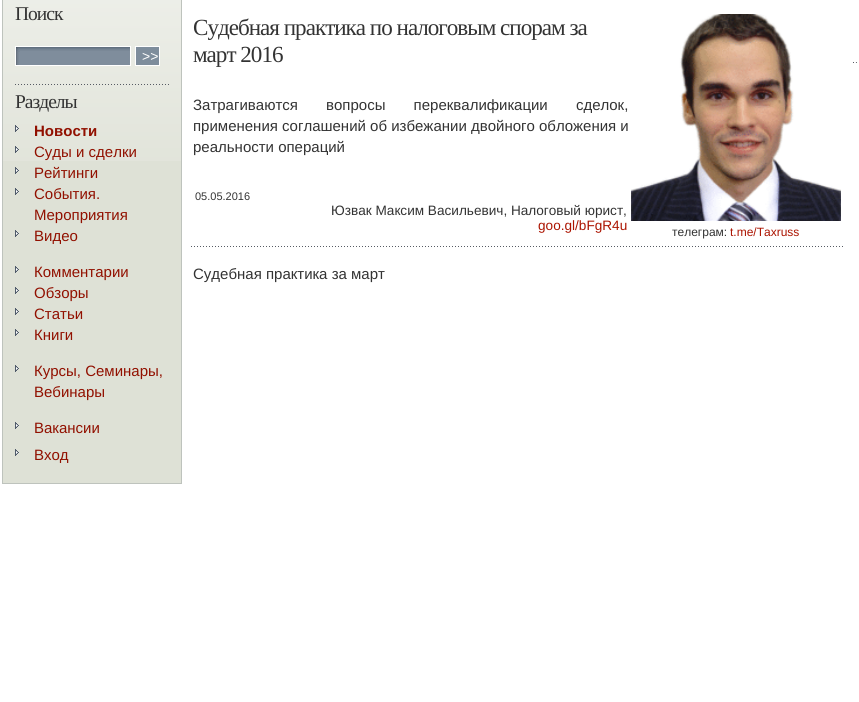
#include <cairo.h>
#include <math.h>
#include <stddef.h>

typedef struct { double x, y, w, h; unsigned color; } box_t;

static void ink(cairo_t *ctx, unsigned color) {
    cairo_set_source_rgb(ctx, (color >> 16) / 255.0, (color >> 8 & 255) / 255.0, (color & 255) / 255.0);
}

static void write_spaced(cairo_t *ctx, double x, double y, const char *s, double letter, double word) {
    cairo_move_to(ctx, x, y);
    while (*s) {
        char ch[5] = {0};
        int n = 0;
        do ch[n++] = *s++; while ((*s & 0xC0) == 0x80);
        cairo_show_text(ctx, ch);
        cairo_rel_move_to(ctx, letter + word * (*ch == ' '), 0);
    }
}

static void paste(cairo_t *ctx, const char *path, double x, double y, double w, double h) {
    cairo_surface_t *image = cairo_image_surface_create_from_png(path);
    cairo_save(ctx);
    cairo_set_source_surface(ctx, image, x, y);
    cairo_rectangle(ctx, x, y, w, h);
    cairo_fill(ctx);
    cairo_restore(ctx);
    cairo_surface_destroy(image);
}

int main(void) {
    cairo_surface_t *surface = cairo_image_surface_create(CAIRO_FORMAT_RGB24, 859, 702);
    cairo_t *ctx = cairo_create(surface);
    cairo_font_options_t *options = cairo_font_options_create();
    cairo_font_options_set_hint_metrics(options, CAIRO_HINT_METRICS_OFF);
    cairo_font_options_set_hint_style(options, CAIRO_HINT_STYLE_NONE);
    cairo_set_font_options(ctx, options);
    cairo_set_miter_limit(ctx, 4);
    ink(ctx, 0xFFFFFF);
    cairo_paint(ctx);
    ink(ctx, 0xDEE1D6);
    cairo_rectangle(ctx, 3, 161, 178, 322);
    cairo_fill(ctx);
    paste(ctx, "media/1.png", 3, 0, 178, 161);
    {
        static const box_t items[] = {
            {181, 0, 1, 484, 0xBEC3BD},
            {2, 483, 180, 1, 0xBEC3BD},
            {2, 0, 1, 484, 0xBEC3BD},
        };
        for (size_t i = 0; i < sizeof items / sizeof *items; i++) {
            ink(ctx, items[i].color);
            cairo_rectangle(ctx, items[i].x, items[i].y, items[i].w, items[i].h);
            cairo_fill(ctx);
        }
    }
    cairo_select_font_face(ctx, "Liberation Serif", CAIRO_FONT_SLANT_NORMAL, CAIRO_FONT_WEIGHT_NORMAL);
    cairo_set_font_size(ctx, 19.5);
    ink(ctx, 0x333333);
    write_spaced(ctx, 15, 20, "Поиск", -1, 0);
    paste(ctx, "media/2.png", 16, 47, 114, 18);
    cairo_rectangle(ctx, 15.5, 46.5, 115, 19);
    ink(ctx, 0xFFFFFF);
    cairo_set_line_width(ctx, 1);
    cairo_stroke(ctx);
    ink(ctx, 0x7E8D9C);
    cairo_rectangle(ctx, 135.5, 46.5, 24, 19);
    cairo_fill_preserve(ctx);
    ink(ctx, 0xFFFFFF);
    cairo_stroke(ctx);
    cairo_select_font_face(ctx, "Liberation Sans", CAIRO_FONT_SLANT_NORMAL, CAIRO_FONT_WEIGHT_NORMAL);
    cairo_set_font_size(ctx, 14);
    cairo_move_to(ctx, 142, 61);
    cairo_show_text(ctx, ">>");
    paste(ctx, "media/3.png", 15, 84, 154, 1);
    cairo_select_font_face(ctx, "Liberation Serif", CAIRO_FONT_SLANT_NORMAL, CAIRO_FONT_WEIGHT_NORMAL);
    cairo_set_font_size(ctx, 19.5);
    ink(ctx, 0x333333);
    write_spaced(ctx, 15, 108, "Разделы", -1, 0);
    paste(ctx, "media/4.png", 15, 125, 4, 7);
    cairo_select_font_face(ctx, "Liberation Sans", CAIRO_FONT_SLANT_NORMAL, CAIRO_FONT_WEIGHT_BOLD);
    cairo_set_font_size(ctx, 15);
    ink(ctx, 0x911000);
    cairo_move_to(ctx, 34, 136);
    cairo_show_text(ctx, "Новости");
    paste(ctx, "media/5.png", 15, 146, 4, 7);
    cairo_select_font_face(ctx, "Liberation Sans", CAIRO_FONT_SLANT_NORMAL, CAIRO_FONT_WEIGHT_NORMAL);
    cairo_move_to(ctx, 34, 157);
    cairo_show_text(ctx, "Суды и сделки");
    paste(ctx, "media/6.png", 15, 167, 4, 7);
    cairo_move_to(ctx, 34, 178);
    cairo_show_text(ctx, "Рейтинги");
    paste(ctx, "media/6.png", 15, 188, 4, 7);
    cairo_move_to(ctx, 34, 199);
    cairo_show_text(ctx, "События.");
    cairo_move_to(ctx, 34, 220);
    cairo_show_text(ctx, "Мероприятия");
    paste(ctx, "media/6.png", 15, 230, 4, 7);
    cairo_move_to(ctx, 34, 241);
    cairo_show_text(ctx, "Видео");
    paste(ctx, "media/6.png", 15, 266, 4, 7);
    cairo_move_to(ctx, 34, 277);
    cairo_show_text(ctx, "Комментарии");
    paste(ctx, "media/6.png", 15, 287, 4, 7);
    cairo_move_to(ctx, 34, 298);
    cairo_show_text(ctx, "Обзоры");
    paste(ctx, "media/6.png", 15, 308, 4, 7);
    cairo_move_to(ctx, 34, 319);
    cairo_show_text(ctx, "Статьи");
    paste(ctx, "media/6.png", 15, 329, 4, 7);
    cairo_move_to(ctx, 34, 340);
    cairo_show_text(ctx, "Книги");
    paste(ctx, "media/6.png", 15, 365, 4, 7);
    cairo_move_to(ctx, 34, 376);
    cairo_show_text(ctx, "Курсы, Семинары,");
    cairo_move_to(ctx, 34, 397);
    cairo_show_text(ctx, "Вебинары");
    paste(ctx, "media/6.png", 15, 422, 4, 7);
    cairo_move_to(ctx, 34, 433);
    cairo_show_text(ctx, "Вакансии");
    paste(ctx, "media/6.png", 15, 449, 4, 7);
    cairo_move_to(ctx, 34, 460);
    cairo_show_text(ctx, "Вход");
    cairo_select_font_face(ctx, "Liberation Serif", CAIRO_FONT_SLANT_NORMAL, CAIRO_FONT_WEIGHT_NORMAL);
    cairo_set_font_size(ctx, 23.1);
    ink(ctx, 0x333333);
    write_spaced(ctx, 193, 35, "Судебная практика по налоговым спорам за", -1, 0);
    write_spaced(ctx, 193, 62, "март 2016", -1, 0);
    paste(ctx, "media/7.png", 631, 14, 210, 207);
    cairo_select_font_face(ctx, "Liberation Sans", CAIRO_FONT_SLANT_NORMAL, CAIRO_FONT_WEIGHT_NORMAL);
    cairo_set_font_size(ctx, 12);
    cairo_move_to(ctx, 672, 236);
    cairo_show_text(ctx, "телеграм:");
    ink(ctx, 0xAB1300);
    cairo_move_to(ctx, 730, 236);
    cairo_show_text(ctx, "t.me/Taxruss");
    cairo_set_font_size(ctx, 15);
    ink(ctx, 0x333333);
    write_spaced(ctx, 193, 110, "Затрагиваются вопросы переквалификации сделок,", 0, 24);
    cairo_move_to(ctx, 193, 131);
    cairo_show_text(ctx, "применения соглашений об избежании двойного обложения и");
    cairo_move_to(ctx, 193, 152);
    cairo_show_text(ctx, "реальности операций");
    cairo_set_font_size(ctx, 11);
    cairo_move_to(ctx, 195, 200);
    cairo_show_text(ctx, "05.05.2016");
    cairo_set_font_size(ctx, 13.6);
    cairo_move_to(ctx, 331, 215);
    cairo_show_text(ctx, "Юзвак Максим Васильевич, Налоговый юрист,");
    ink(ctx, 0xAB1300);
    cairo_move_to(ctx, 538, 230);
    cairo_show_text(ctx, "goo.gl/bFgR4u");
    paste(ctx, "media/8.png", 191, 246, 652, 1);
    cairo_set_font_size(ctx, 15);
    ink(ctx, 0x333333);
    cairo_move_to(ctx, 193, 279);
    cairo_show_text(ctx, "Судебная практика за март");
    paste(ctx, "media/9.png", 853, 62, 4, 1);
    cairo_surface_write_to_png(surface, "image.png");
    cairo_font_options_destroy(options);
    cairo_destroy(ctx);
    cairo_surface_destroy(surface);
    return 0;
}
